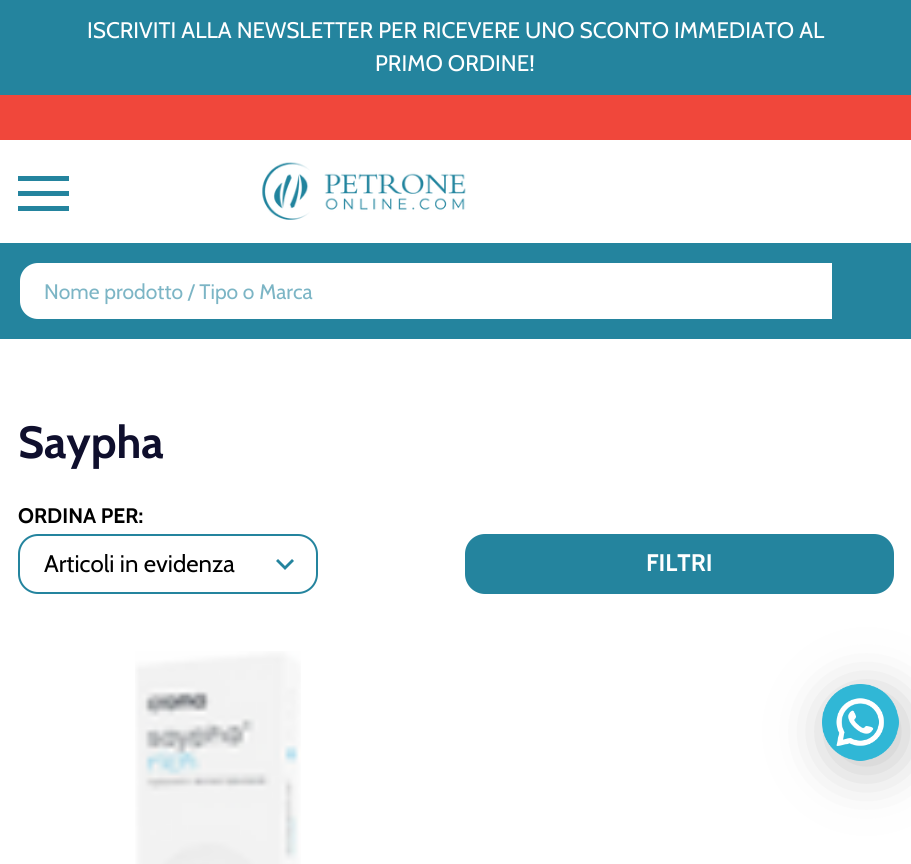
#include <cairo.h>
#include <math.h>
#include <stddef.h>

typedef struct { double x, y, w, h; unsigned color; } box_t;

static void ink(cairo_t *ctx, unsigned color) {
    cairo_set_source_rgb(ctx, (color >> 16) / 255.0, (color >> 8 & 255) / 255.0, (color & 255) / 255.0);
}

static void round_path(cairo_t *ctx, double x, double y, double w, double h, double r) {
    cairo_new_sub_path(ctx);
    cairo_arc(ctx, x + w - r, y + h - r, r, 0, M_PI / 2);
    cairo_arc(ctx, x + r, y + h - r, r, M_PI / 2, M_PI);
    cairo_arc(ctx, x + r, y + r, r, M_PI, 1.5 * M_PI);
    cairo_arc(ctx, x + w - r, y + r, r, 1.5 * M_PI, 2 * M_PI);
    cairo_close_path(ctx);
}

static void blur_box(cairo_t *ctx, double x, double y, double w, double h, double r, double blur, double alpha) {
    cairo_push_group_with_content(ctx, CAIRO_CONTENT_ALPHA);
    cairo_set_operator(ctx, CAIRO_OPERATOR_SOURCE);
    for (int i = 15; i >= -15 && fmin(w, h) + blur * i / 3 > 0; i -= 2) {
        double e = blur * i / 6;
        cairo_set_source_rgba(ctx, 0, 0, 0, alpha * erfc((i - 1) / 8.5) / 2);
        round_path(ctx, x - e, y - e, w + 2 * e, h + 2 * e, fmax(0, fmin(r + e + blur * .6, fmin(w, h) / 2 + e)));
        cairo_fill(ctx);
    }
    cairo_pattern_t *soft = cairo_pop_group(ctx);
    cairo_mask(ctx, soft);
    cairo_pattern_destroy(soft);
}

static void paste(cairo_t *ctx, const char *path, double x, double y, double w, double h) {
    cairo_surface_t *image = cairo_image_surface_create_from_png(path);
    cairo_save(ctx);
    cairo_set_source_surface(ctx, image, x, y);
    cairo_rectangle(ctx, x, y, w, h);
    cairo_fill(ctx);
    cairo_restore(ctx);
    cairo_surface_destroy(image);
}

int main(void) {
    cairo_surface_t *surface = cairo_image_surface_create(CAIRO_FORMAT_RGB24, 911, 864);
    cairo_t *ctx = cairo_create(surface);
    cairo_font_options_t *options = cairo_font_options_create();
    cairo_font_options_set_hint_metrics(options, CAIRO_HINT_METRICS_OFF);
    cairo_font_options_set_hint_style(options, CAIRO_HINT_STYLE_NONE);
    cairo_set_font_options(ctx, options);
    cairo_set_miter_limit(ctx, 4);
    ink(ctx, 0xFFFFFF);
    cairo_paint(ctx);
    ink(ctx, 0x24849E);
    cairo_rectangle(ctx, 0, 0, 911, 95);
    cairo_fill(ctx);
    cairo_select_font_face(ctx, "Cabin", CAIRO_FONT_SLANT_NORMAL, CAIRO_FONT_WEIGHT_NORMAL);
    cairo_set_font_size(ctx, 22.5);
    ink(ctx, 0xFFFFFF);
    cairo_move_to(ctx, 87, 38);
    cairo_show_text(ctx, "ISCRIVITI ALLA NEWSLETTER PER RICEVERE UNO SCONTO IMMEDIATO AL");
    cairo_move_to(ctx, 375, 71);
    cairo_show_text(ctx, "PRIMO ORDINE!");
    {
        static const box_t items[] = {
            {0, 95, 911, 45, 0xF0473B},
            {18, 191, 51, 5, 0x24849E},
            {18, 176, 51, 5, 0x24849E},
            {18, 206, 51, 5, 0x24849E},
        };
        for (size_t i = 0; i < sizeof items / sizeof *items; i++) {
            ink(ctx, items[i].color);
            cairo_rectangle(ctx, items[i].x, items[i].y, items[i].w, items[i].h);
            cairo_fill(ctx);
        }
    }
    paste(ctx, "media/1.png", 262, 162, 204, 58);
    cairo_rectangle(ctx, 0, 243, 911, 96);
    cairo_fill(ctx);
    ink(ctx, 0xFFFFFF);
    cairo_new_path(ctx);
    cairo_move_to(ctx, 38, 262);
    cairo_line_to(ctx, 833, 262);
    cairo_line_to(ctx, 833, 320);
    cairo_line_to(ctx, 38, 320);
    cairo_curve_to(ctx, 27.5, 320, 19, 311.5, 19, 301);
    cairo_line_to(ctx, 19, 281);
    cairo_curve_to(ctx, 19, 270.5, 27.5, 262, 38, 262);
    cairo_close_path(ctx);
    cairo_fill_preserve(ctx);
    ink(ctx, 0x24849E);
    cairo_stroke(ctx);
    cairo_set_font_size(ctx, 21);
    ink(ctx, 0x7CB5C5);
    cairo_move_to(ctx, 44, 299);
    cairo_show_text(ctx, "Nome prodotto / Tipo o Marca");
    cairo_select_font_face(ctx, "Cabin", CAIRO_FONT_SLANT_NORMAL, CAIRO_FONT_WEIGHT_BOLD);
    cairo_set_font_size(ctx, 45);
    ink(ctx, 0x0F0F2D);
    cairo_move_to(ctx, 18, 458);
    cairo_show_text(ctx, "Saypha");
    cairo_set_font_size(ctx, 21);
    ink(ctx, 0x000000);
    cairo_move_to(ctx, 18, 523);
    cairo_show_text(ctx, "ORDINA PER:");
    ink(ctx, 0x24849E);
    cairo_new_path(ctx);
    cairo_move_to(ctx, 292, 559);
    cairo_line_to(ctx, 285, 566);
    cairo_line_to(ctx, 278, 559);
    cairo_line_to(ctx, 276, 561);
    cairo_line_to(ctx, 285, 570);
    cairo_line_to(ctx, 294, 561);
    cairo_close_path(ctx);
    cairo_fill(ctx);
    round_path(ctx, 19, 535, 298, 58, 19);
    cairo_stroke(ctx);
    cairo_select_font_face(ctx, "Cabin", CAIRO_FONT_SLANT_NORMAL, CAIRO_FONT_WEIGHT_NORMAL);
    cairo_set_font_size(ctx, 24);
    ink(ctx, 0x000000);
    cairo_move_to(ctx, 44, 572);
    cairo_show_text(ctx, "Articoli in evidenza");
    ink(ctx, 0x24849E);
    round_path(ctx, 466.5, 535.5, 426, 57, 18.5);
    cairo_fill_preserve(ctx);
    cairo_set_line_width(ctx, 3);
    cairo_stroke(ctx);
    cairo_select_font_face(ctx, "Cabin", CAIRO_FONT_SLANT_NORMAL, CAIRO_FONT_WEIGHT_BOLD);
    ink(ctx, 0xFFFFFF);
    cairo_move_to(ctx, 646, 571);
    cairo_show_text(ctx, "FILTRI");
    paste(ctx, "media/2.png", 135, 651, 166, 213);
    ink(ctx, 0x717171);
    blur_box(ctx, 827, 692, 79, 79, 39.5, 26, 0.4);
    paste(ctx, "media/3.png", 822, 684, 77, 77);
    cairo_surface_write_to_png(surface, "image.png");
    cairo_font_options_destroy(options);
    cairo_destroy(ctx);
    cairo_surface_destroy(surface);
    return 0;
}
